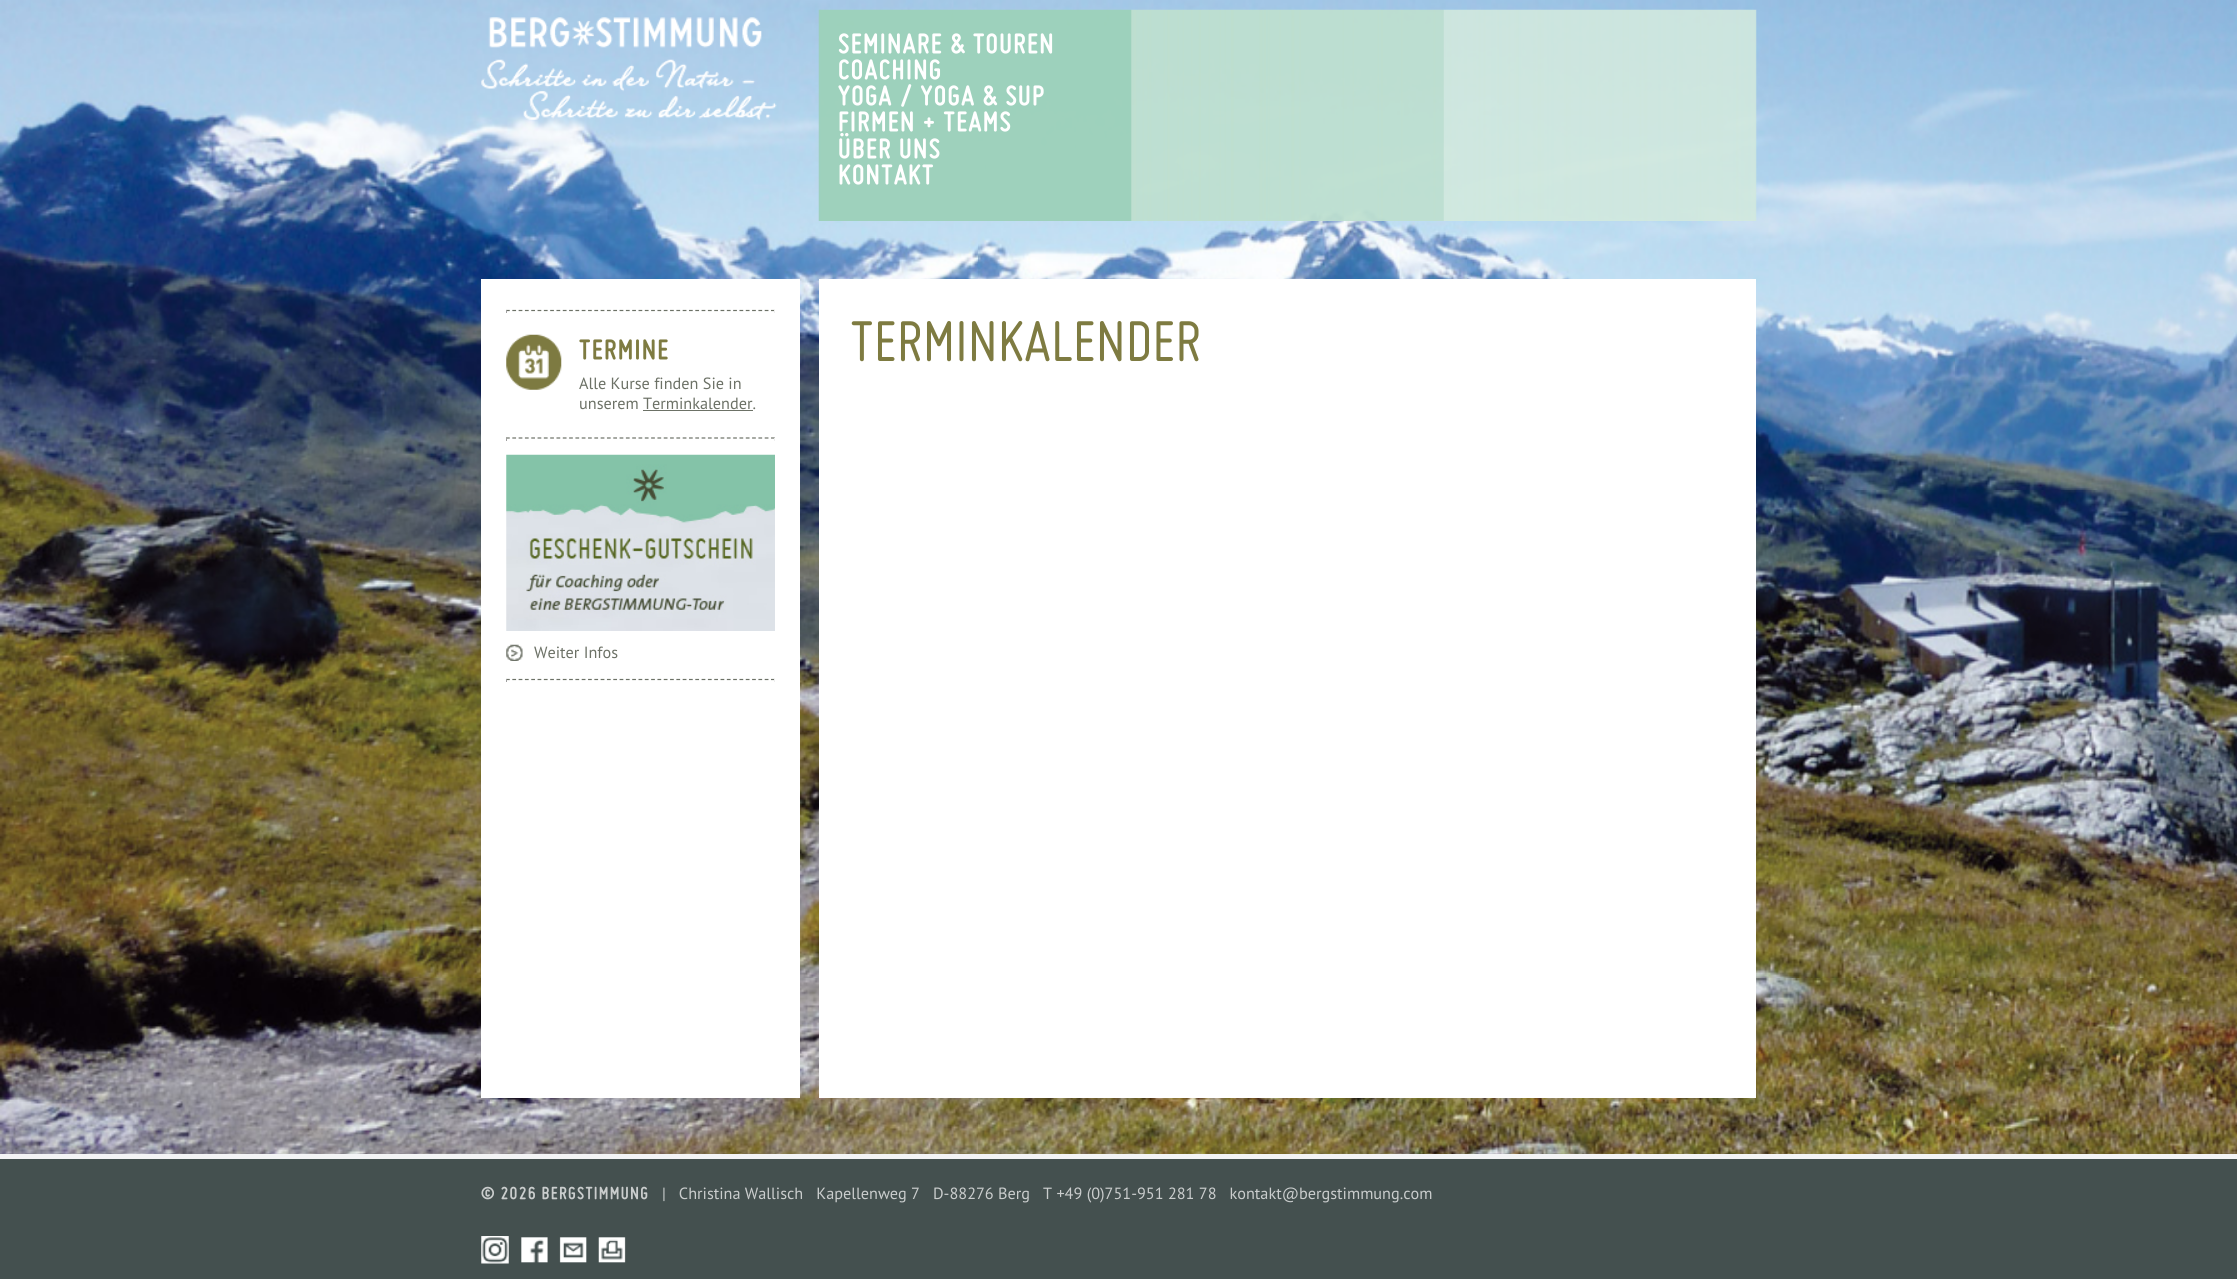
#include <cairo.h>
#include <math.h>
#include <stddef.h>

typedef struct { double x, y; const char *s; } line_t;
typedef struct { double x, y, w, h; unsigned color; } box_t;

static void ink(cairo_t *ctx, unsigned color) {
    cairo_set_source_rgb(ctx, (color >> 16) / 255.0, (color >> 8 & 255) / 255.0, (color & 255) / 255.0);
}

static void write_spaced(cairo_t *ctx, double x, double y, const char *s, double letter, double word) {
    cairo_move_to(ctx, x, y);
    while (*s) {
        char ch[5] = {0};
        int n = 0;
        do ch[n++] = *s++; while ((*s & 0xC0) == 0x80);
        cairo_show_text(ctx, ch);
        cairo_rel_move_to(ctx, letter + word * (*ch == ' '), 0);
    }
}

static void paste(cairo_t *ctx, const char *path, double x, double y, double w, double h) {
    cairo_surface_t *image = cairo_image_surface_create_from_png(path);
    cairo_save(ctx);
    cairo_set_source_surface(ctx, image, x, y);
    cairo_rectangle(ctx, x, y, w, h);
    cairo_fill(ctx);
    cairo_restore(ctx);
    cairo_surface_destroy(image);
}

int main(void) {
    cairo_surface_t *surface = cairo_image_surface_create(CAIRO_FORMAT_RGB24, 2237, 1279);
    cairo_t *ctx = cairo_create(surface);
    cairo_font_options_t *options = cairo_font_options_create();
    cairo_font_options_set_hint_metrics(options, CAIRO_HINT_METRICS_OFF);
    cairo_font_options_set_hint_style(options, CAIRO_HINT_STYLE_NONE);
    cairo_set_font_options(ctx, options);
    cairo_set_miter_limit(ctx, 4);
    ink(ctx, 0xFFFFFF);
    cairo_paint(ctx);
    paste(ctx, "media/1.png", 0, 0, 2237, 1154);
    paste(ctx, "media/2.png", 481, 17, 296, 103);
    paste(ctx, "media/3.png", 818, 9, 939, 212);
    cairo_select_font_face(ctx, "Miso", CAIRO_FONT_SLANT_ITALIC, CAIRO_FONT_WEIGHT_BOLD);
    cairo_set_font_size(ctx, 30);
    ink(ctx, 0xFFFFFF);
    {
        static const line_t items[] = {
            {838, 53, "SEMINARE & TOUREN"},
            {838, 79, "COACHING"},
            {838, 105, "YOGA / YOGA & SUP"},
            {838, 131, "FIRMEN + TEAMS"},
            {838, 158, "ÜBER UNS"},
            {838, 184, "KONTAKT"},
        };
        for (size_t i = 0; i < sizeof items / sizeof *items; i++) {
            write_spaced(ctx, items[i].x, items[i].y, items[i].s, 1.25, 0);
        }
    }
    cairo_rectangle(ctx, 481, 279, 319, 819);
    cairo_fill(ctx);
    cairo_new_path(ctx);
    cairo_move_to(ctx, 506, 310.5);
    cairo_line_to(ctx, 775, 310.5);
    ink(ctx, 0x6C7166);
    cairo_set_line_width(ctx, 1.2);
    cairo_set_dash(ctx, (double[]){3.75, 2.56}, 2, 0);
    cairo_stroke(ctx);
    ink(ctx, 0xEEEEEE);
    cairo_rectangle(ctx, 774, 310, 1, 3);
    cairo_fill(ctx);
    ink(ctx, 0x9F9F9F);
    cairo_rectangle(ctx, 506, 310, 1, 3);
    cairo_fill(ctx);
    paste(ctx, "media/4.png", 506, 334, 56, 56);
    ink(ctx, 0x7E7B41);
    write_spaced(ctx, 579, 359, "TERMINE", 1.25, 0);
    cairo_select_font_face(ctx, "PT Sans", CAIRO_FONT_SLANT_NORMAL, CAIRO_FONT_WEIGHT_NORMAL);
    cairo_set_font_size(ctx, 16.25);
    ink(ctx, 0x6C7166);
    cairo_move_to(ctx, 579, 389);
    cairo_show_text(ctx, "Alle Kurse finden Sie in");
    cairo_move_to(ctx, 579, 409);
    cairo_show_text(ctx, "unserem Terminkalender.");
    cairo_rectangle(ctx, 643, 410, 110, 1);
    cairo_fill(ctx);
    cairo_new_path(ctx);
    cairo_move_to(ctx, 506, 438);
    cairo_line_to(ctx, 775, 438);
    cairo_stroke(ctx);
    ink(ctx, 0xEEEEEE);
    cairo_rectangle(ctx, 774, 438, 1, 3);
    cairo_fill(ctx);
    ink(ctx, 0x9F9F9F);
    cairo_rectangle(ctx, 506, 438, 1, 3);
    cairo_fill(ctx);
    paste(ctx, "media/5.png", 506, 454, 269, 177);
    paste(ctx, "media/6.png", 506, 644, 17, 17);
    ink(ctx, 0x6C7166);
    cairo_move_to(ctx, 534, 658);
    cairo_show_text(ctx, "Weiter Infos");
    cairo_new_path(ctx);
    cairo_move_to(ctx, 506, 679.5);
    cairo_line_to(ctx, 775, 679.5);
    cairo_stroke(ctx);
    {
        static const box_t items[] = {
            {774, 679, 1, 3, 0xEEEEEE},
            {506, 679, 1, 3, 0x9F9F9F},
            {819, 279, 937, 819, 0xFFFFFF},
        };
        for (size_t i = 0; i < sizeof items / sizeof *items; i++) {
            ink(ctx, items[i].color);
            cairo_rectangle(ctx, items[i].x, items[i].y, items[i].w, items[i].h);
            cairo_fill(ctx);
        }
    }
    cairo_select_font_face(ctx, "Miso", CAIRO_FONT_SLANT_ITALIC, CAIRO_FONT_WEIGHT_NORMAL);
    cairo_set_font_size(ctx, 62.5);
    ink(ctx, 0x7E7B41);
    cairo_move_to(ctx, 850, 361);
    cairo_show_text(ctx, "TERMINKALENDER");
    ink(ctx, 0xF3F4F5);
    cairo_rectangle(ctx, 0, 1154, 2237, 5);
    cairo_fill(ctx);
    ink(ctx, 0x44504F);
    cairo_rectangle(ctx, 0, 1159, 2237, 120);
    cairo_fill(ctx);
    cairo_select_font_face(ctx, "Miso", CAIRO_FONT_SLANT_ITALIC, CAIRO_FONT_WEIGHT_BOLD);
    cairo_set_font_size(ctx, 18.75);
    ink(ctx, 0xCACDCD);
    write_spaced(ctx, 481, 1199, "© 2026 BERGSTIMMUNG", 1.25, 0);
    cairo_select_font_face(ctx, "PT Sans", CAIRO_FONT_SLANT_NORMAL, CAIRO_FONT_WEIGHT_NORMAL);
    cairo_set_font_size(ctx, 16.25);
    cairo_move_to(ctx, 662, 1199);
    cairo_show_text(ctx, "|   Christina Wallisch   Kapellenweg 7   D-88276 Berg   T +49 (0)751-951 281 78   kontakt@bergstimmung.com");
    paste(ctx, "media/7.png", 481, 1236, 28, 28);
    paste(ctx, "media/8.png", 521, 1237, 27, 26);
    paste(ctx, "media/9.png", 559, 1237, 28, 26);
    paste(ctx, "media/10.png", 598, 1237, 28, 26);
    cairo_surface_write_to_png(surface, "image.png");
    cairo_font_options_destroy(options);
    cairo_destroy(ctx);
    cairo_surface_destroy(surface);
    return 0;
}
